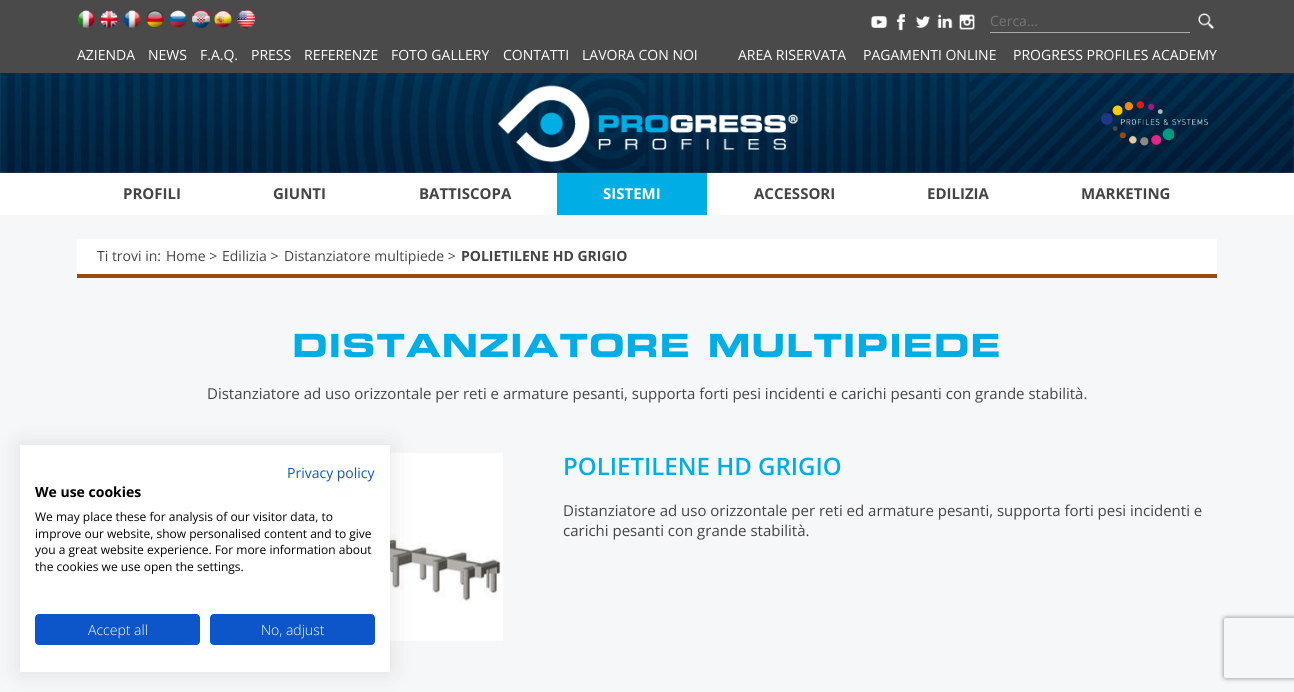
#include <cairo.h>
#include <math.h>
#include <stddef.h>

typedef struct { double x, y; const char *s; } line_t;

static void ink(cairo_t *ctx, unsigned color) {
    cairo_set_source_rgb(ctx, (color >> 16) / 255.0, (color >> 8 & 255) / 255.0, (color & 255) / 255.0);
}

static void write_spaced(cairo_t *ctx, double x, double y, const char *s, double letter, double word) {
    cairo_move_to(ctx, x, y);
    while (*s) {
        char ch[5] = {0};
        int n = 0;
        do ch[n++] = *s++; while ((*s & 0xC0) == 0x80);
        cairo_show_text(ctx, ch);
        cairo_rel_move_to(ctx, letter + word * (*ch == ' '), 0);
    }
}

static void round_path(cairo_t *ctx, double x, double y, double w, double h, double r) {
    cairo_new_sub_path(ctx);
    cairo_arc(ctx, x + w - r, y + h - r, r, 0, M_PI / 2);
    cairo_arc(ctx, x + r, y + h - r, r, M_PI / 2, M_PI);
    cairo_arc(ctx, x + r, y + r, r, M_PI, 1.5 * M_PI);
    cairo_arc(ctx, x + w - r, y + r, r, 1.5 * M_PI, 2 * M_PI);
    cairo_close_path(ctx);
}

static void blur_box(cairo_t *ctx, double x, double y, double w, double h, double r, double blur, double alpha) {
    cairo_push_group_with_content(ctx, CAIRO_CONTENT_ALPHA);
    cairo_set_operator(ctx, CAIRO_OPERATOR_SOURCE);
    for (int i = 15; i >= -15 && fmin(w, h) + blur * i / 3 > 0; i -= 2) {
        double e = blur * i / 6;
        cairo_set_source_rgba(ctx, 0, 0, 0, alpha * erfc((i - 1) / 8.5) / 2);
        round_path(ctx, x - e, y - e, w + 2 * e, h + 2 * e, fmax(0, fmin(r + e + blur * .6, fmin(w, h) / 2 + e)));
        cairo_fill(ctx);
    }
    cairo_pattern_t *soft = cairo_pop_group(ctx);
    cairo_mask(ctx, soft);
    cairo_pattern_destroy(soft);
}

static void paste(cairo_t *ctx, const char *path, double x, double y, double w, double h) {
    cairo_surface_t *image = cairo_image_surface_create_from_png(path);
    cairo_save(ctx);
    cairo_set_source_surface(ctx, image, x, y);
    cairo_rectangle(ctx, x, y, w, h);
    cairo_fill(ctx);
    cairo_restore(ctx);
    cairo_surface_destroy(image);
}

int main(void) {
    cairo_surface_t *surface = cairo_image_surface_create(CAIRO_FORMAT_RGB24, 1294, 692);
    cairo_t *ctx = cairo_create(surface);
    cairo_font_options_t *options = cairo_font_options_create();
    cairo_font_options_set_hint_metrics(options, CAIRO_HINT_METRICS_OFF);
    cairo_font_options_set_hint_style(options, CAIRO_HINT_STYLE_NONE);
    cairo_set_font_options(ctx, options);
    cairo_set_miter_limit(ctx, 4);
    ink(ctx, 0xF5F7F9);
    cairo_paint(ctx);
    ink(ctx, 0x4A4A4B);
    cairo_rectangle(ctx, 0, 0, 1294, 73);
    cairo_fill(ctx);
    paste(ctx, "media/1.png", 77, 10, 18, 18);
    paste(ctx, "media/2.png", 100, 10, 18, 18);
    paste(ctx, "media/3.png", 123, 10, 18, 18);
    paste(ctx, "media/4.png", 146, 10, 18, 18);
    paste(ctx, "media/5.png", 169, 10, 18, 18);
    paste(ctx, "media/6.png", 192, 10, 18, 18);
    paste(ctx, "media/7.png", 214, 10, 18, 18);
    paste(ctx, "media/8.png", 237, 10, 18, 18);
    paste(ctx, "media/9.png", 870, 16, 18, 12);
    paste(ctx, "media/10.png", 897, 13, 8, 18);
    paste(ctx, "media/11.png", 916, 16, 15, 12);
    paste(ctx, "media/12.png", 937, 14, 16, 14);
    paste(ctx, "media/13.png", 959, 14, 16, 16);
    ink(ctx, 0xAAAAAA);
    cairo_rectangle(ctx, 990, 32, 200, 1);
    cairo_fill(ctx);
    cairo_select_font_face(ctx, "Open Sans", CAIRO_FONT_SLANT_NORMAL, CAIRO_FONT_WEIGHT_NORMAL);
    cairo_set_font_size(ctx, 14);
    ink(ctx, 0x757575);
    cairo_move_to(ctx, 990, 26);
    cairo_show_text(ctx, "Cerca...");
    paste(ctx, "media/14.png", 1198, 13, 16, 16);
    ink(ctx, 0xFFFFFF);
    {
        static const line_t items[] = {
            {77, 60, "AZIENDA"},
            {148, 60, "NEWS"},
            {200, 60, "F.A.Q."},
            {251, 60, "PRESS"},
            {304, 60, "REFERENZE"},
            {391, 60, "FOTO GALLERY"},
            {503, 60, "CONTATTI"},
            {582, 60, "LAVORA CON NOI"},
            {738, 60, "AREA RISERVATA"},
            {863, 60, "PAGAMENTI ONLINE"},
            {1013, 60, "PROGRESS PROFILES ACADEMY"},
        };
        for (size_t i = 0; i < sizeof items / sizeof *items; i++) {
            cairo_move_to(ctx, items[i].x, items[i].y);
            cairo_show_text(ctx, items[i].s);
        }
    }
    paste(ctx, "media/15.png", 0, 73, 1294, 100);
    paste(ctx, "media/16.png", 497, 85, 302, 78);
    paste(ctx, "media/17.png", 1100, 101, 109, 45);
    cairo_rectangle(ctx, 0, 173, 1294, 42);
    cairo_fill(ctx);
    cairo_select_font_face(ctx, "Open Sans", CAIRO_FONT_SLANT_NORMAL, CAIRO_FONT_WEIGHT_BOLD);
    cairo_set_font_size(ctx, 15);
    ink(ctx, 0x444444);
    {
        static const line_t items[] = {
            {123, 199, "PROFILI"},
            {273, 199, "GIUNTI"},
            {419, 199, "BATTISCOPA"},
        };
        for (size_t i = 0; i < sizeof items / sizeof *items; i++) {
            cairo_move_to(ctx, items[i].x, items[i].y);
            cairo_show_text(ctx, items[i].s);
        }
    }
    ink(ctx, 0x00AEE5);
    cairo_rectangle(ctx, 557, 173, 150, 42);
    cairo_fill(ctx);
    ink(ctx, 0xFFFFFF);
    cairo_move_to(ctx, 603, 199);
    cairo_show_text(ctx, "SISTEMI");
    ink(ctx, 0x444444);
    {
        static const line_t items[] = {
            {754, 199, "ACCESSORI"},
            {927, 199, "EDILIZIA"},
            {1081, 199, "MARKETING"},
        };
        for (size_t i = 0; i < sizeof items / sizeof *items; i++) {
            cairo_move_to(ctx, items[i].x, items[i].y);
            cairo_show_text(ctx, items[i].s);
        }
    }
    ink(ctx, 0xFFFFFF);
    cairo_rectangle(ctx, 77, 239, 1140, 35);
    cairo_fill(ctx);
    ink(ctx, 0x9B490D);
    cairo_rectangle(ctx, 77, 274, 1140, 4);
    cairo_fill(ctx);
    cairo_select_font_face(ctx, "Open Sans", CAIRO_FONT_SLANT_NORMAL, CAIRO_FONT_WEIGHT_NORMAL);
    cairo_set_font_size(ctx, 14);
    ink(ctx, 0x444444);
    {
        static const line_t items[] = {
            {97, 261, "Ti trovi in:"},
            {166, 261, "Home >"},
            {222, 261, "Edilizia >"},
            {284, 261, "Distanziatore multipiede >"},
        };
        for (size_t i = 0; i < sizeof items / sizeof *items; i++) {
            cairo_move_to(ctx, items[i].x, items[i].y);
            cairo_show_text(ctx, items[i].s);
        }
    }
    cairo_select_font_face(ctx, "Open Sans", CAIRO_FONT_SLANT_NORMAL, CAIRO_FONT_WEIGHT_BOLD);
    cairo_move_to(ctx, 461, 261);
    cairo_show_text(ctx, "POLIETILENE HD GRIGIO");
    cairo_select_font_face(ctx, "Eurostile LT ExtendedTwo", CAIRO_FONT_SLANT_NORMAL, CAIRO_FONT_WEIGHT_BOLD);
    cairo_set_font_size(ctx, 32);
    ink(ctx, 0x00AEE5);
    write_spaced(ctx, 292, 357, "DISTANZIATORE MULTIPIEDE", 1, 0);
    cairo_select_font_face(ctx, "Open Sans", CAIRO_FONT_SLANT_NORMAL, CAIRO_FONT_WEIGHT_NORMAL);
    cairo_set_font_size(ctx, 15);
    ink(ctx, 0x444444);
    cairo_move_to(ctx, 207, 399);
    cairo_show_text(ctx, "Distanziatore ad uso orizzontale per reti e armature pesanti, supporta forti pesi incidenti e carichi pesanti con grande stabilità.");
    paste(ctx, "media/18.png", 390, 453, 113, 188);
    cairo_select_font_face(ctx, "Open Sans SemiBold", CAIRO_FONT_SLANT_NORMAL, CAIRO_FONT_WEIGHT_NORMAL);
    cairo_set_font_size(ctx, 24);
    ink(ctx, 0x00AEE5);
    cairo_move_to(ctx, 563, 475);
    cairo_show_text(ctx, "POLIETILENE HD GRIGIO");
    cairo_select_font_face(ctx, "Open Sans", CAIRO_FONT_SLANT_NORMAL, CAIRO_FONT_WEIGHT_NORMAL);
    cairo_set_font_size(ctx, 15);
    ink(ctx, 0x444444);
    cairo_move_to(ctx, 563, 516);
    cairo_show_text(ctx, "Distanziatore ad uso orizzontale per reti ed armature pesanti, supporta forti pesi incidenti e");
    cairo_move_to(ctx, 563, 536);
    cairo_show_text(ctx, "carichi pesanti con grande stabilità.");
    ink(ctx, 0x000000);
    blur_box(ctx, 20, 445, 370, 227, 0, 12, 0.1);
    ink(ctx, 0xFFFFFF);
    cairo_rectangle(ctx, 20, 445, 370, 227);
    cairo_fill(ctx);
    cairo_set_font_size(ctx, 14);
    ink(ctx, 0x0D56C9);
    cairo_move_to(ctx, 287, 478);
    cairo_show_text(ctx, "Privacy policy");
    cairo_select_font_face(ctx, "Open Sans", CAIRO_FONT_SLANT_NORMAL, CAIRO_FONT_WEIGHT_BOLD);
    ink(ctx, 0x000000);
    cairo_move_to(ctx, 35, 497);
    cairo_show_text(ctx, "We use cookies");
    cairo_select_font_face(ctx, "Open Sans", CAIRO_FONT_SLANT_NORMAL, CAIRO_FONT_WEIGHT_NORMAL);
    cairo_set_font_size(ctx, 12);
    {
        static const line_t items[] = {
            {35, 521, "We may place these for analysis of our visitor data, to"},
            {35, 538, "improve our website, show personalised content and to give"},
            {35, 554, "you a great website experience. For more information about"},
            {35, 571, "the cookies we use open the settings."},
        };
        for (size_t i = 0; i < sizeof items / sizeof *items; i++) {
            cairo_move_to(ctx, items[i].x, items[i].y);
            cairo_show_text(ctx, items[i].s);
        }
    }
    ink(ctx, 0x0D56C9);
    round_path(ctx, 35.5, 614.5, 164, 30, 3.5);
    cairo_fill_preserve(ctx);
    cairo_set_line_width(ctx, 1);
    cairo_stroke(ctx);
    cairo_select_font_face(ctx, "Open Sans Light", CAIRO_FONT_SLANT_NORMAL, CAIRO_FONT_WEIGHT_NORMAL);
    cairo_set_font_size(ctx, 14);
    ink(ctx, 0xFFFFFF);
    cairo_move_to(ctx, 88, 635);
    cairo_show_text(ctx, "Accept all");
    ink(ctx, 0x0D56C9);
    round_path(ctx, 210.5, 614.5, 164, 30, 3.5);
    cairo_fill_preserve(ctx);
    cairo_stroke(ctx);
    ink(ctx, 0xFFFFFF);
    cairo_move_to(ctx, 261, 635);
    cairo_show_text(ctx, "No, adjust");
    cairo_save(ctx);
    cairo_set_fill_rule(ctx, CAIRO_FILL_RULE_EVEN_ODD);
    cairo_new_path(ctx);
    cairo_move_to(ctx, 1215, 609);
    cairo_line_to(ctx, 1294, 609);
    cairo_line_to(ctx, 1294, 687);
    cairo_line_to(ctx, 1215, 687);
    cairo_close_path(ctx);
    cairo_move_to(ctx, 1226, 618);
    cairo_line_to(ctx, 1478, 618);
    cairo_curve_to(ctx, 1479, 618, 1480, 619, 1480, 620);
    cairo_line_to(ctx, 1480, 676);
    cairo_curve_to(ctx, 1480, 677, 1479, 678, 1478, 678);
    cairo_line_to(ctx, 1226, 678);
    cairo_curve_to(ctx, 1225, 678, 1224, 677, 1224, 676);
    cairo_line_to(ctx, 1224, 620);
    cairo_curve_to(ctx, 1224, 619, 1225, 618, 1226, 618);
    cairo_close_path(ctx);
    cairo_clip(ctx);
    ink(ctx, 0x808080);
    blur_box(ctx, 1224, 618, 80, 60, 2, 2.5, 1);
    cairo_restore(ctx);
    cairo_surface_write_to_png(surface, "image.png");
    cairo_font_options_destroy(options);
    cairo_destroy(ctx);
    cairo_surface_destroy(surface);
    return 0;
}
